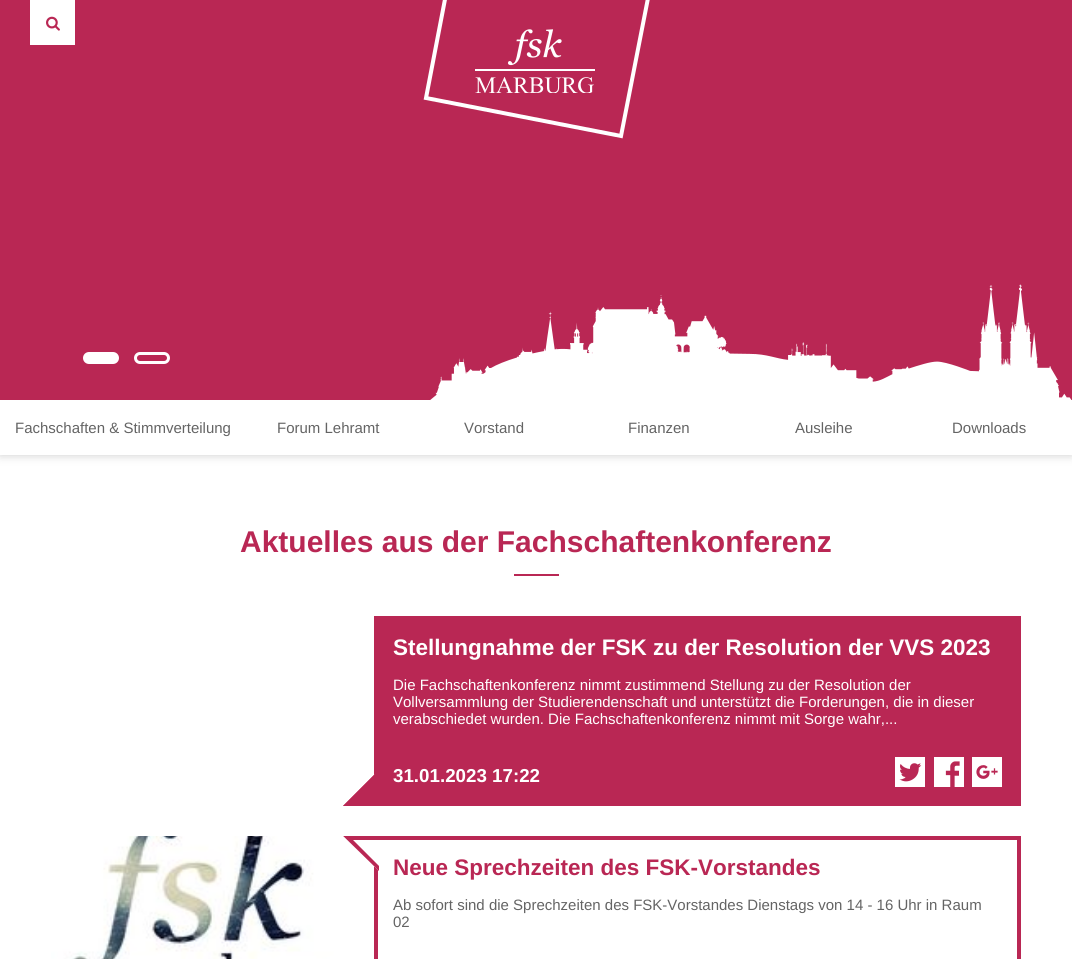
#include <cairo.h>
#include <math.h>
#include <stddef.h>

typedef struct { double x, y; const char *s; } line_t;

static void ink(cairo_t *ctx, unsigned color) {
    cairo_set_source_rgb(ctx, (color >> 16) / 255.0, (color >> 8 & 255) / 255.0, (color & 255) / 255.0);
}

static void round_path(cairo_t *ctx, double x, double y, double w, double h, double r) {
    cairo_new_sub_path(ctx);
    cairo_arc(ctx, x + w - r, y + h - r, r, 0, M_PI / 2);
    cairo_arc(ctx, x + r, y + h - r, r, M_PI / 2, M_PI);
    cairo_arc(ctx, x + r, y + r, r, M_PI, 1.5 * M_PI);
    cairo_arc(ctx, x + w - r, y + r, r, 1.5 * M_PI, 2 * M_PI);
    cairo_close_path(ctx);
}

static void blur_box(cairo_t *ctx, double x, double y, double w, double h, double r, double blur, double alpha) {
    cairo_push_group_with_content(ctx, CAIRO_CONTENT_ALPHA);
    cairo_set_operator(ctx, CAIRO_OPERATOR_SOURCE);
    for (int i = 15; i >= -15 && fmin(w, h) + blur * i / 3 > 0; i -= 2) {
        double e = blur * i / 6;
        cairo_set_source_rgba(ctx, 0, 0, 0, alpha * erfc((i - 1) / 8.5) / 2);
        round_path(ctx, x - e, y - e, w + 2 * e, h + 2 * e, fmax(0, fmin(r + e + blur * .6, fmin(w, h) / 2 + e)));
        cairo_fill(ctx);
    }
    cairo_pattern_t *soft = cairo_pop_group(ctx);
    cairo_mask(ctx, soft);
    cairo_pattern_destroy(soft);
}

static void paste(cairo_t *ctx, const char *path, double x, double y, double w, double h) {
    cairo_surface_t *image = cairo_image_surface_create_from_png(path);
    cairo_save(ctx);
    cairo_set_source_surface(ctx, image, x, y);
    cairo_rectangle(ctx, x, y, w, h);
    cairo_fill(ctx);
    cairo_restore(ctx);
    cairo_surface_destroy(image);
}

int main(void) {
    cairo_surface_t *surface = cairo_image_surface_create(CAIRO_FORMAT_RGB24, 1072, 959);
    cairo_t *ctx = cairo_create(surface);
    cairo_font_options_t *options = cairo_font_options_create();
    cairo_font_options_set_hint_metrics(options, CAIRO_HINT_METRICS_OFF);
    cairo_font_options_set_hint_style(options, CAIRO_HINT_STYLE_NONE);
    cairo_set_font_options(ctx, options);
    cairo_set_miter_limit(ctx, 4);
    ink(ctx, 0xFFFFFF);
    cairo_paint(ctx);
    ink(ctx, 0x000000);
    blur_box(ctx, 0, 400, 1072, 55, 0, 5, 0.2);
    ink(ctx, 0xB92754);
    cairo_rectangle(ctx, 0, 0, 1072, 400);
    cairo_fill(ctx);
    paste(ctx, "media/1.png", 430, 284, 642, 116);
    ink(ctx, 0xFFFFFF);
    cairo_rectangle(ctx, 30, 0, 45, 45);
    cairo_fill(ctx);
    paste(ctx, "media/2.png", 46, 16, 14, 15);
    round_path(ctx, 84.5, 353.5, 33, 9, 4.5);
    cairo_fill_preserve(ctx);
    cairo_set_line_width(ctx, 3);
    cairo_stroke(ctx);
    round_path(ctx, 135.5, 353.5, 33, 9, 4.5);
    cairo_stroke(ctx);
    cairo_new_path(ctx);
    cairo_move_to(ctx, 454.5, -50);
    cairo_line_to(ctx, 650, -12);
    cairo_line_to(ctx, 621, 136);
    cairo_line_to(ctx, 426, 98);
    cairo_close_path(ctx);
    cairo_set_line_width(ctx, 4);
    cairo_stroke(ctx);
    paste(ctx, "media/3.png", 475, 29, 120, 64);
    cairo_rectangle(ctx, 0, 400, 1072, 55);
    cairo_fill(ctx);
    cairo_select_font_face(ctx, "Liberation Sans", CAIRO_FONT_SLANT_NORMAL, CAIRO_FONT_WEIGHT_NORMAL);
    cairo_set_font_size(ctx, 15);
    ink(ctx, 0x646464);
    {
        static const line_t items[] = {
            {15, 433, "Fachschaften & Stimmverteilung"},
            {277, 433, "Forum Lehramt"},
            {464, 433, "Vorstand"},
            {628, 433, "Finanzen"},
            {795, 433, "Ausleihe"},
            {952, 433, "Downloads"},
        };
        for (size_t i = 0; i < sizeof items / sizeof *items; i++) {
            cairo_move_to(ctx, items[i].x, items[i].y);
            cairo_show_text(ctx, items[i].s);
        }
    }
    cairo_select_font_face(ctx, "Liberation Sans", CAIRO_FONT_SLANT_NORMAL, CAIRO_FONT_WEIGHT_BOLD);
    cairo_set_font_size(ctx, 30);
    ink(ctx, 0xB92754);
    cairo_move_to(ctx, 240, 552);
    cairo_show_text(ctx, "Aktuelles aus der Fachschaftenkonferenz");
    cairo_rectangle(ctx, 514, 574, 45, 2);
    cairo_fill(ctx);
    cairo_rectangle(ctx, 374, 616, 647, 190);
    cairo_fill(ctx);
    cairo_save(ctx);
    cairo_rectangle(ctx, 319, 761, 60, 45);
    cairo_clip(ctx);
    ink(ctx, 0xFFFFFF);
    cairo_new_path(ctx);
    cairo_move_to(ctx, 299, 826);
    cairo_line_to(ctx, 362, 763);
    cairo_line_to(ctx, 380, 780);
    cairo_line_to(ctx, 316, 844);
    cairo_close_path(ctx);
    cairo_fill(ctx);
    ink(ctx, 0xB92754);
    cairo_new_path(ctx);
    cairo_move_to(ctx, 336, 813);
    cairo_line_to(ctx, 379, 770);
    cairo_line_to(ctx, 410, 802);
    cairo_line_to(ctx, 368, 844);
    cairo_close_path(ctx);
    cairo_fill(ctx);
    cairo_new_path(ctx);
    cairo_move_to(ctx, 336, 813);
    cairo_line_to(ctx, 379, 770);
    cairo_line_to(ctx, 379, 776);
    cairo_line_to(ctx, 342, 813);
    cairo_close_path(ctx);
    cairo_fill(ctx);
    cairo_restore(ctx);
    cairo_set_font_size(ctx, 22.5);
    ink(ctx, 0xFFFFFF);
    cairo_move_to(ctx, 393, 655);
    cairo_show_text(ctx, "Stellungnahme der FSK zu der Resolution der VVS 2023");
    cairo_select_font_face(ctx, "Liberation Sans", CAIRO_FONT_SLANT_NORMAL, CAIRO_FONT_WEIGHT_NORMAL);
    cairo_set_font_size(ctx, 15);
    {
        static const line_t items[] = {
            {393, 690, "Die Fachschaftenkonferenz nimmt zustimmend Stellung zu der Resolution der"},
            {393, 707, "Vollversammlung der Studierendenschaft und unterstützt die Forderungen, die in dieser"},
            {393, 724, "verabschiedet wurden. Die Fachschaftenkonferenz nimmt mit Sorge wahr,..."},
        };
        for (size_t i = 0; i < sizeof items / sizeof *items; i++) {
            cairo_move_to(ctx, items[i].x, items[i].y);
            cairo_show_text(ctx, items[i].s);
        }
    }
    cairo_select_font_face(ctx, "Liberation Sans", CAIRO_FONT_SLANT_NORMAL, CAIRO_FONT_WEIGHT_BOLD);
    cairo_set_font_size(ctx, 18.75);
    cairo_move_to(ctx, 393, 782);
    cairo_show_text(ctx, "31.01.2023 17:22");
    paste(ctx, "media/4.png", 895, 757, 30, 30);
    paste(ctx, "media/5.png", 934, 757, 30, 30);
    paste(ctx, "media/6.png", 972, 757, 30, 30);
    paste(ctx, "media/7.png", 51, 836, 308, 123);
    cairo_rectangle(ctx, 376, 838, 643, 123);
    ink(ctx, 0xB92754);
    cairo_stroke(ctx);
    cairo_save(ctx);
    cairo_rectangle(ctx, 319, 836, 60, 45);
    cairo_clip(ctx);
    ink(ctx, 0xFFFFFF);
    cairo_new_path(ctx);
    cairo_move_to(ctx, 299, 815);
    cairo_line_to(ctx, 362, 879);
    cairo_line_to(ctx, 380, 861);
    cairo_line_to(ctx, 316, 798);
    cairo_close_path(ctx);
    cairo_fill(ctx);
    cairo_new_path(ctx);
    cairo_move_to(ctx, 336, 829);
    cairo_line_to(ctx, 379, 871);
    cairo_line_to(ctx, 410, 840);
    cairo_line_to(ctx, 368, 797);
    cairo_close_path(ctx);
    cairo_fill(ctx);
    ink(ctx, 0xB92754);
    cairo_new_path(ctx);
    cairo_move_to(ctx, 336, 829);
    cairo_line_to(ctx, 379, 871);
    cairo_line_to(ctx, 379, 866);
    cairo_line_to(ctx, 342, 829);
    cairo_close_path(ctx);
    cairo_fill(ctx);
    cairo_new_path(ctx);
    cairo_move_to(ctx, 434, 836);
    cairo_line_to(ctx, 344, 836);
    cairo_line_to(ctx, 348, 840);
    cairo_line_to(ctx, 430, 840);
    cairo_close_path(ctx);
    cairo_fill(ctx);
    cairo_restore(ctx);
    cairo_set_font_size(ctx, 22.5);
    cairo_move_to(ctx, 393, 875);
    cairo_show_text(ctx, "Neue Sprechzeiten des FSK-Vorstandes");
    cairo_select_font_face(ctx, "Liberation Sans", CAIRO_FONT_SLANT_NORMAL, CAIRO_FONT_WEIGHT_NORMAL);
    cairo_set_font_size(ctx, 15);
    ink(ctx, 0x646464);
    cairo_move_to(ctx, 393, 910);
    cairo_show_text(ctx, "Ab sofort sind die Sprechzeiten des FSK-Vorstandes Dienstags von 14 - 16 Uhr in Raum");
    cairo_move_to(ctx, 393, 927);
    cairo_show_text(ctx, "02");
    cairo_surface_write_to_png(surface, "image.png");
    cairo_font_options_destroy(options);
    cairo_destroy(ctx);
    cairo_surface_destroy(surface);
    return 0;
}
